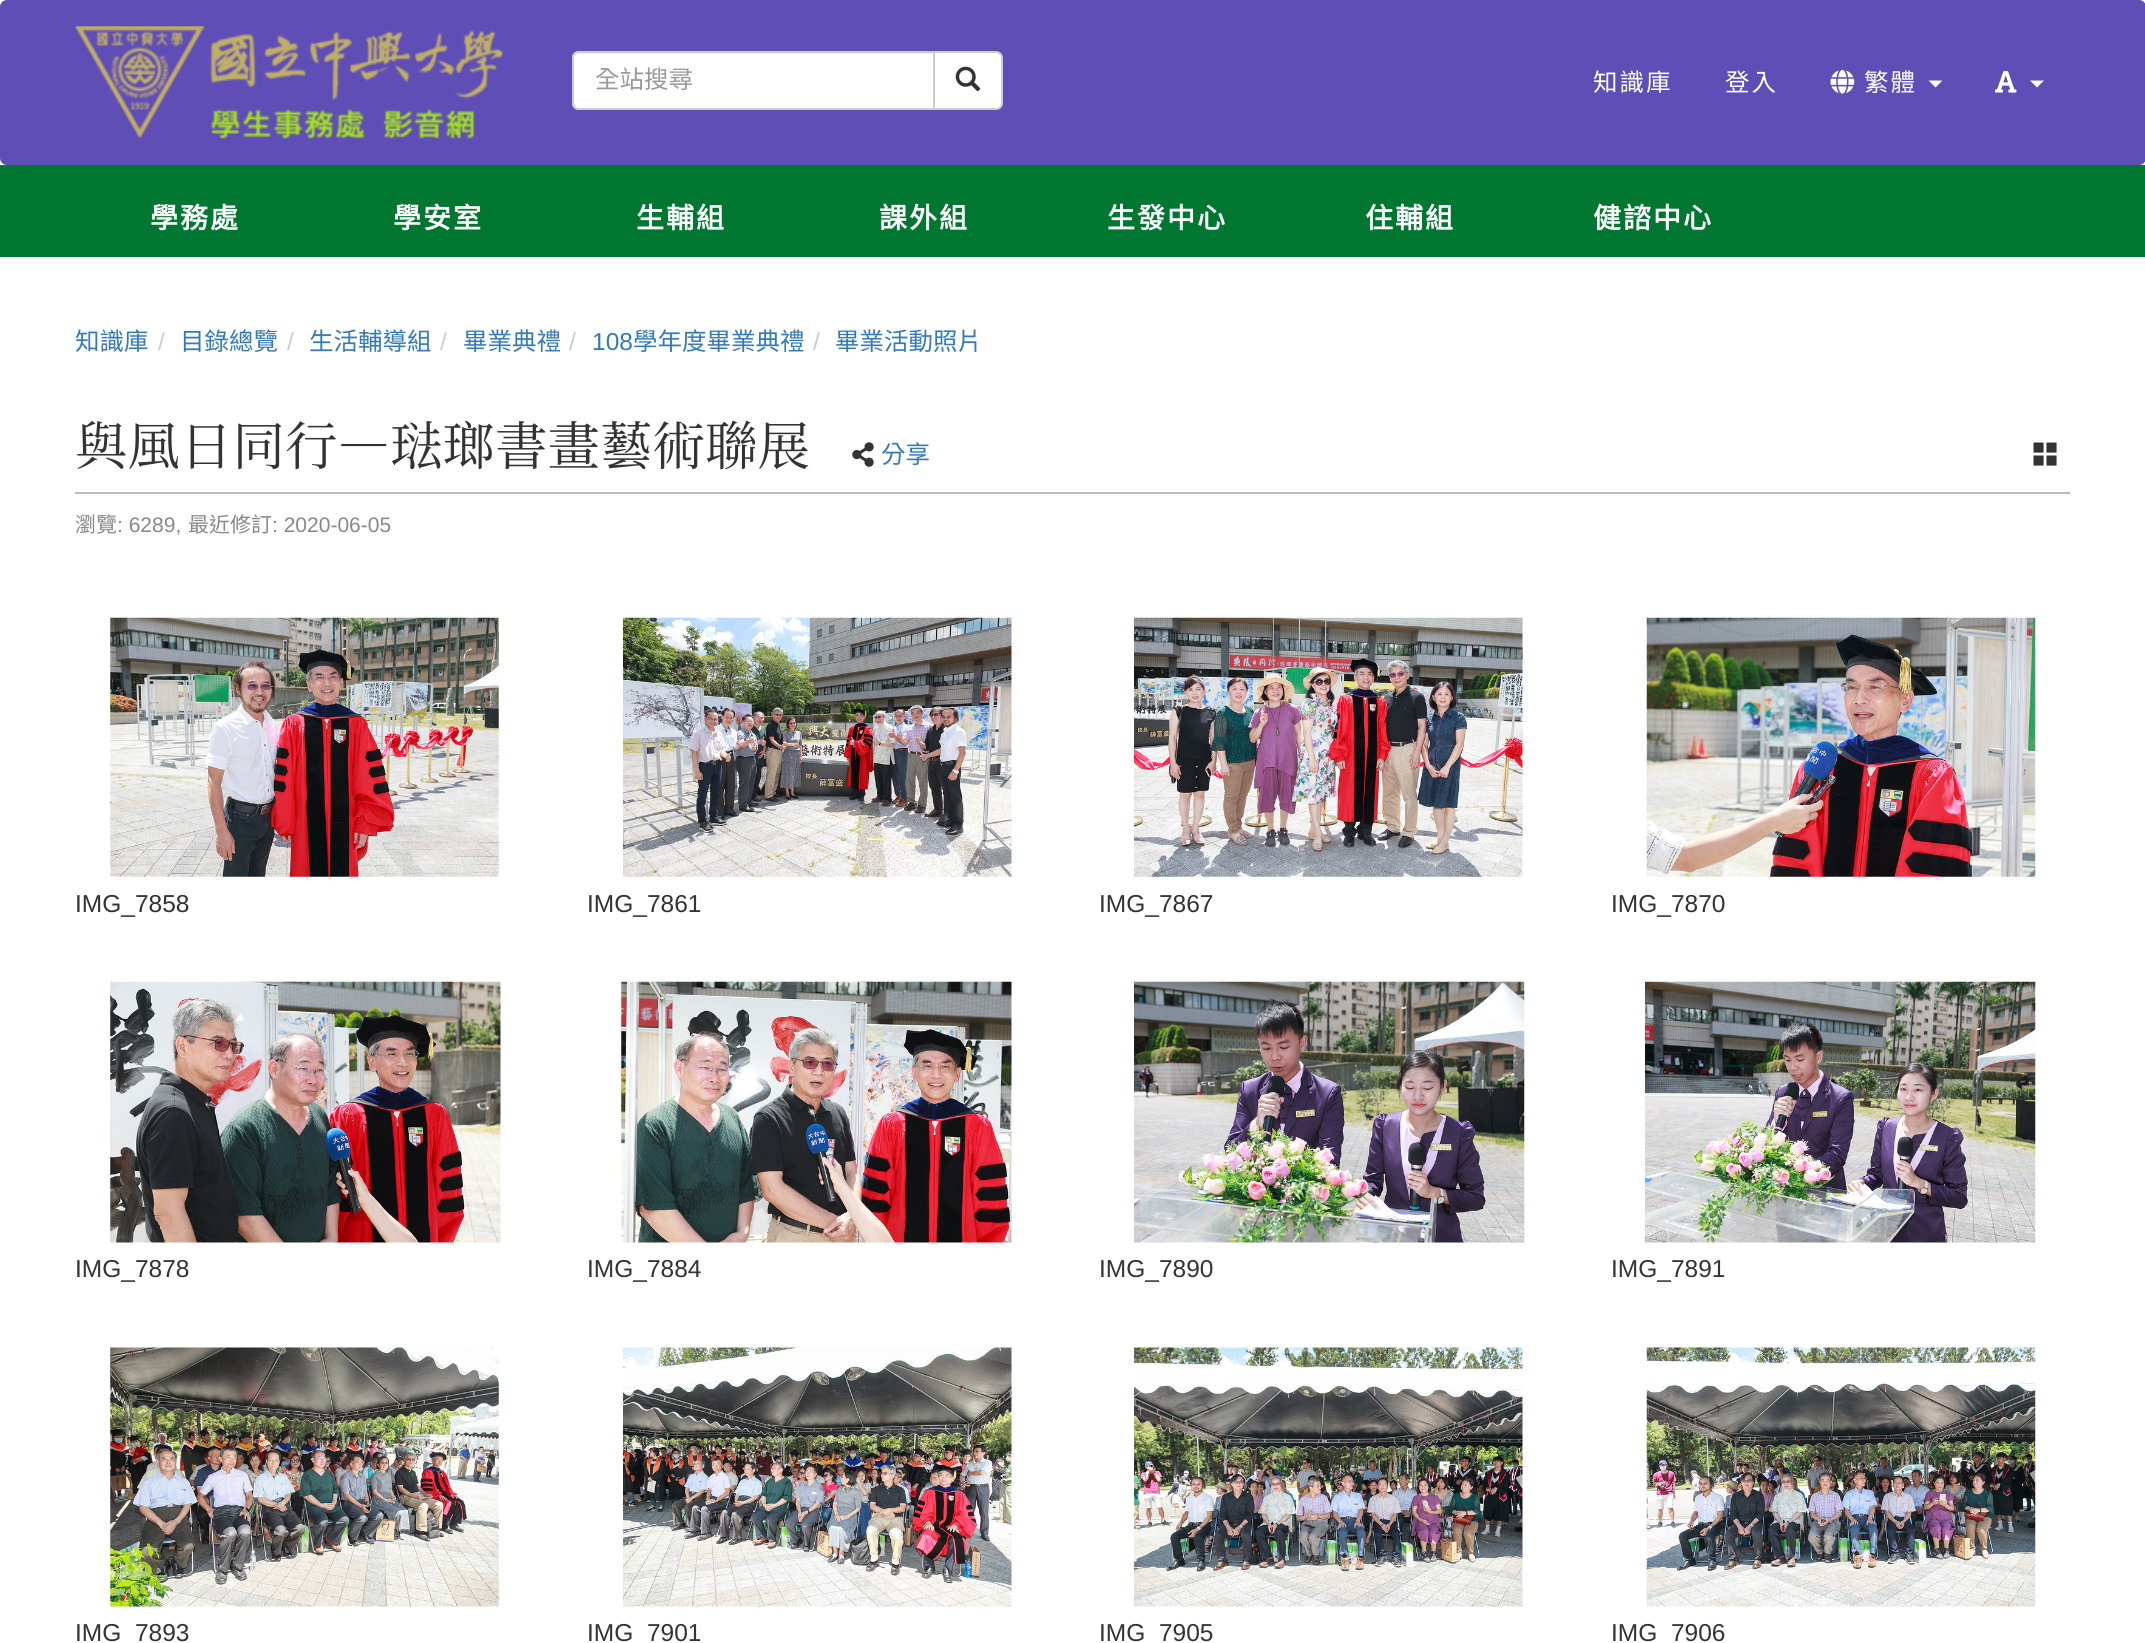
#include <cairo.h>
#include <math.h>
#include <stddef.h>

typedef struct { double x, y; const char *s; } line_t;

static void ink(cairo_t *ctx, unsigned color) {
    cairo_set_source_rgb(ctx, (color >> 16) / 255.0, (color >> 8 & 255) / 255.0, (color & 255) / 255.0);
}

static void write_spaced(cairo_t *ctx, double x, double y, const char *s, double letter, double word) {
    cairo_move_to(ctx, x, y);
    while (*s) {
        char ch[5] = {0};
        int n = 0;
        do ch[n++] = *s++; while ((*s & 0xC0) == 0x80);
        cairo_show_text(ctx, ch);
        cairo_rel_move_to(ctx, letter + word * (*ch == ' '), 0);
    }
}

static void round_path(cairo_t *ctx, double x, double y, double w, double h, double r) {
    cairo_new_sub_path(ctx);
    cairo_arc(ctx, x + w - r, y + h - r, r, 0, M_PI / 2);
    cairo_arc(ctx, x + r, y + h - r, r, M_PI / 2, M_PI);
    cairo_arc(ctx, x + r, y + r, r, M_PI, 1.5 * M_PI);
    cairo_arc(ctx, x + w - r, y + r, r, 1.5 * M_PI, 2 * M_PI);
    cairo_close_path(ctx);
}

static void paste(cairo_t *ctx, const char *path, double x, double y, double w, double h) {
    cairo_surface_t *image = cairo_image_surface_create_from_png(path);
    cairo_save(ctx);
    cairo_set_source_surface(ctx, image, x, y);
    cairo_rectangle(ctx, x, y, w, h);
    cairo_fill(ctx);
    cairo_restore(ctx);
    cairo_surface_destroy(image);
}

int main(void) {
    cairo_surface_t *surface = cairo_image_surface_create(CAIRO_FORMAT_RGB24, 2145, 1643);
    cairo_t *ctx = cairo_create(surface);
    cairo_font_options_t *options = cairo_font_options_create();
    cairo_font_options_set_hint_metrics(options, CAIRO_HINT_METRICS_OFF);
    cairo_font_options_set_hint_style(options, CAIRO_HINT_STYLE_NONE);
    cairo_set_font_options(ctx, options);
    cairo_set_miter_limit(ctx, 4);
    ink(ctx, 0xFFFFFF);
    cairo_paint(ctx);
    ink(ctx, 0x5F4EB6);
    round_path(ctx, 0, 0, 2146, 165, 7);
    cairo_fill(ctx);
    paste(ctx, "media/1.png", 75, 26, 428, 113);
    ink(ctx, 0xFFFFFF);
    cairo_new_path(ctx);
    cairo_move_to(ctx, 579, 51);
    cairo_line_to(ctx, 935, 51);
    cairo_line_to(ctx, 935, 110);
    cairo_line_to(ctx, 579, 110);
    cairo_curve_to(ctx, 575, 110, 572, 107, 572, 103);
    cairo_line_to(ctx, 572, 58);
    cairo_curve_to(ctx, 572, 54, 575, 51, 579, 51);
    cairo_close_path(ctx);
    cairo_fill(ctx);
    ink(ctx, 0xECECEC);
    cairo_new_path(ctx);
    cairo_move_to(ctx, 579, 54);
    cairo_line_to(ctx, 933, 54);
    cairo_line_to(ctx, 933, 53);
    cairo_line_to(ctx, 579, 53);
    cairo_curve_to(ctx, 575, 53, 574, 57, 574, 60);
    cairo_curve_to(ctx, 574, 57, 576, 54, 579, 54);
    cairo_close_path(ctx);
    cairo_fill(ctx);
    cairo_new_path(ctx);
    cairo_move_to(ctx, 579, 52);
    cairo_line_to(ctx, 934, 52);
    cairo_line_to(ctx, 934, 109);
    cairo_line_to(ctx, 579, 109);
    cairo_curve_to(ctx, 575.5, 109, 573, 106.5, 573, 103);
    cairo_line_to(ctx, 573, 58);
    cairo_curve_to(ctx, 573, 54.5, 575.5, 52, 579, 52);
    cairo_close_path(ctx);
    ink(ctx, 0xCCCCCC);
    cairo_stroke(ctx);
    cairo_select_font_face(ctx, "Noto Sans CJK TC", CAIRO_FONT_SLANT_NORMAL, CAIRO_FONT_WEIGHT_NORMAL);
    cairo_set_font_size(ctx, 24.5);
    ink(ctx, 0x999999);
    cairo_move_to(ctx, 595, 88);
    cairo_show_text(ctx, "全站搜尋");
    ink(ctx, 0xFFFFFF);
    cairo_new_path(ctx);
    cairo_move_to(ctx, 934, 52);
    cairo_line_to(ctx, 996, 52);
    cairo_curve_to(ctx, 999.5, 52, 1002, 54.5, 1002, 58);
    cairo_line_to(ctx, 1002, 103);
    cairo_curve_to(ctx, 1002, 106.5, 999.5, 109, 996, 109);
    cairo_line_to(ctx, 934, 109);
    cairo_close_path(ctx);
    cairo_fill_preserve(ctx);
    ink(ctx, 0xCCCCCC);
    cairo_stroke(ctx);
    paste(ctx, "media/2.png", 955, 66, 26, 26);
    ink(ctx, 0xFFFFFF);
    write_spaced(ctx, 1593, 91, "知識庫", 2, 0);
    write_spaced(ctx, 1725, 91, "登入", 2, 0);
    paste(ctx, "media/3.png", 1830, 70, 25, 24);
    write_spaced(ctx, 1864, 91, "繁體", 2, 0);
    cairo_new_path(ctx);
    cairo_move_to(ctx, 1928.5, 80.5);
    cairo_line_to(ctx, 1942.5, 80.5);
    cairo_line_to(ctx, 1935.5, 87.5);
    cairo_close_path(ctx);
    cairo_fill(ctx);
    paste(ctx, "media/4.png", 1995, 71, 22, 22);
    cairo_new_path(ctx);
    cairo_move_to(ctx, 2030, 80.5);
    cairo_line_to(ctx, 2044, 80.5);
    cairo_line_to(ctx, 2037, 87.5);
    cairo_close_path(ctx);
    cairo_fill(ctx);
    ink(ctx, 0x007731);
    cairo_rectangle(ctx, 0, 165, 2145, 92);
    cairo_fill(ctx);
    cairo_select_font_face(ctx, "Noto Sans CJK TC", CAIRO_FONT_SLANT_NORMAL, CAIRO_FONT_WEIGHT_BOLD);
    cairo_set_font_size(ctx, 28);
    ink(ctx, 0xFFFFFF);
    {
        static const line_t items[] = {
            {150, 228, "學務處"},
            {393, 228, "學安室"},
            {636, 228, "生輔組"},
            {879, 228, "課外組"},
            {1107, 228, "生發中心"},
            {1365, 228, "住輔組"},
            {1593, 228, "健諮中心"},
        };
        for (size_t i = 0; i < sizeof items / sizeof *items; i++) {
            write_spaced(ctx, items[i].x, items[i].y, items[i].s, 2, 0);
        }
    }
    cairo_select_font_face(ctx, "Noto Sans CJK TC", CAIRO_FONT_SLANT_NORMAL, CAIRO_FONT_WEIGHT_NORMAL);
    cairo_set_font_size(ctx, 24.5);
    ink(ctx, 0x337AB7);
    cairo_move_to(ctx, 75, 350);
    cairo_show_text(ctx, "知識庫");
    cairo_select_font_face(ctx, "Liberation Sans", CAIRO_FONT_SLANT_NORMAL, CAIRO_FONT_WEIGHT_NORMAL);
    ink(ctx, 0xCCCCCC);
    cairo_move_to(ctx, 158, 350);
    cairo_show_text(ctx, "/");
    cairo_select_font_face(ctx, "Noto Sans CJK TC", CAIRO_FONT_SLANT_NORMAL, CAIRO_FONT_WEIGHT_NORMAL);
    ink(ctx, 0x337AB7);
    cairo_move_to(ctx, 180, 350);
    cairo_show_text(ctx, "目錄總覽");
    cairo_select_font_face(ctx, "Liberation Sans", CAIRO_FONT_SLANT_NORMAL, CAIRO_FONT_WEIGHT_NORMAL);
    ink(ctx, 0xCCCCCC);
    cairo_move_to(ctx, 287, 350);
    cairo_show_text(ctx, "/");
    cairo_select_font_face(ctx, "Noto Sans CJK TC", CAIRO_FONT_SLANT_NORMAL, CAIRO_FONT_WEIGHT_NORMAL);
    ink(ctx, 0x337AB7);
    cairo_move_to(ctx, 309, 350);
    cairo_show_text(ctx, "生活輔導組");
    cairo_select_font_face(ctx, "Liberation Sans", CAIRO_FONT_SLANT_NORMAL, CAIRO_FONT_WEIGHT_NORMAL);
    ink(ctx, 0xCCCCCC);
    cairo_move_to(ctx, 440, 350);
    cairo_show_text(ctx, "/");
    cairo_select_font_face(ctx, "Noto Sans CJK TC", CAIRO_FONT_SLANT_NORMAL, CAIRO_FONT_WEIGHT_NORMAL);
    ink(ctx, 0x337AB7);
    cairo_move_to(ctx, 463, 350);
    cairo_show_text(ctx, "畢業典禮");
    cairo_select_font_face(ctx, "Liberation Sans", CAIRO_FONT_SLANT_NORMAL, CAIRO_FONT_WEIGHT_NORMAL);
    ink(ctx, 0xCCCCCC);
    cairo_move_to(ctx, 569, 350);
    cairo_show_text(ctx, "/");
    ink(ctx, 0x337AB7);
    cairo_move_to(ctx, 592, 350);
    cairo_show_text(ctx, "108");
    cairo_select_font_face(ctx, "Noto Sans CJK TC", CAIRO_FONT_SLANT_NORMAL, CAIRO_FONT_WEIGHT_NORMAL);
    cairo_move_to(ctx, 633, 350);
    cairo_show_text(ctx, "學年度畢業典禮");
    cairo_select_font_face(ctx, "Liberation Sans", CAIRO_FONT_SLANT_NORMAL, CAIRO_FONT_WEIGHT_NORMAL);
    ink(ctx, 0xCCCCCC);
    cairo_move_to(ctx, 813, 350);
    cairo_show_text(ctx, "/");
    cairo_select_font_face(ctx, "Noto Sans CJK TC", CAIRO_FONT_SLANT_NORMAL, CAIRO_FONT_WEIGHT_NORMAL);
    ink(ctx, 0x337AB7);
    cairo_move_to(ctx, 835, 350);
    cairo_show_text(ctx, "畢業活動照片");
    ink(ctx, 0xBBBBBB);
    cairo_rectangle(ctx, 75, 492, 1995, 2);
    cairo_fill(ctx);
    cairo_select_font_face(ctx, "Noto Serif TC ExtraLight", CAIRO_FONT_SLANT_NORMAL, CAIRO_FONT_WEIGHT_NORMAL);
    cairo_set_font_size(ctx, 52.5);
    ink(ctx, 0x333333);
    cairo_move_to(ctx, 75, 465);
    cairo_show_text(ctx, "與風日同行―琺瑯書畫藝術聯展");
    paste(ctx, "media/5.png", 852, 442, 22, 25);
    cairo_select_font_face(ctx, "Noto Sans CJK TC", CAIRO_FONT_SLANT_NORMAL, CAIRO_FONT_WEIGHT_NORMAL);
    cairo_set_font_size(ctx, 24.5);
    ink(ctx, 0x337AB7);
    cairo_move_to(ctx, 881, 463);
    cairo_show_text(ctx, "分享");
    paste(ctx, "media/6.png", 2033, 442, 24, 24);
    cairo_set_font_size(ctx, 21);
    ink(ctx, 0x888888);
    cairo_move_to(ctx, 75, 532);
    cairo_show_text(ctx, "瀏覽");
    cairo_select_font_face(ctx, "Liberation Sans", CAIRO_FONT_SLANT_NORMAL, CAIRO_FONT_WEIGHT_NORMAL);
    cairo_move_to(ctx, 117, 532);
    cairo_show_text(ctx, ": 6289,");
    cairo_select_font_face(ctx, "Noto Sans CJK TC", CAIRO_FONT_SLANT_NORMAL, CAIRO_FONT_WEIGHT_NORMAL);
    cairo_move_to(ctx, 188, 532);
    cairo_show_text(ctx, "最近修訂");
    cairo_select_font_face(ctx, "Liberation Sans", CAIRO_FONT_SLANT_NORMAL, CAIRO_FONT_WEIGHT_NORMAL);
    cairo_move_to(ctx, 272, 532);
    cairo_show_text(ctx, ": 2020-06-05");
    paste(ctx, "media/7.png", 110, 617, 389, 260);
    cairo_set_font_size(ctx, 24.5);
    ink(ctx, 0x333333);
    cairo_move_to(ctx, 75, 912);
    cairo_show_text(ctx, "IMG_7858");
    paste(ctx, "media/8.png", 623, 617, 389, 260);
    cairo_move_to(ctx, 587, 912);
    cairo_show_text(ctx, "IMG_7861");
    paste(ctx, "media/9.png", 1134, 617, 389, 260);
    cairo_move_to(ctx, 1099, 912);
    cairo_show_text(ctx, "IMG_7867");
    paste(ctx, "media/10.png", 1646, 617, 390, 260);
    cairo_move_to(ctx, 1611, 912);
    cairo_show_text(ctx, "IMG_7870");
    paste(ctx, "media/11.png", 110, 981, 391, 262);
    cairo_move_to(ctx, 75, 1277);
    cairo_show_text(ctx, "IMG_7878");
    paste(ctx, "media/12.png", 621, 981, 391, 262);
    cairo_move_to(ctx, 587, 1277);
    cairo_show_text(ctx, "IMG_7884");
    paste(ctx, "media/13.png", 1134, 981, 391, 262);
    cairo_move_to(ctx, 1099, 1277);
    cairo_show_text(ctx, "IMG_7890");
    paste(ctx, "media/14.png", 1645, 981, 391, 262);
    cairo_move_to(ctx, 1611, 1277);
    cairo_show_text(ctx, "IMG_7891");
    paste(ctx, "media/15.png", 110, 1347, 389, 260);
    cairo_move_to(ctx, 75, 1641);
    cairo_show_text(ctx, "IMG_7893");
    paste(ctx, "media/16.png", 623, 1347, 389, 260);
    cairo_move_to(ctx, 587, 1641);
    cairo_show_text(ctx, "IMG_7901");
    paste(ctx, "media/17.png", 1134, 1347, 389, 260);
    cairo_move_to(ctx, 1099, 1641);
    cairo_show_text(ctx, "IMG_7905");
    paste(ctx, "media/18.png", 1646, 1347, 390, 260);
    cairo_move_to(ctx, 1611, 1641);
    cairo_show_text(ctx, "IMG_7906");
    cairo_surface_write_to_png(surface, "image.png");
    cairo_font_options_destroy(options);
    cairo_destroy(ctx);
    cairo_surface_destroy(surface);
    return 0;
}
